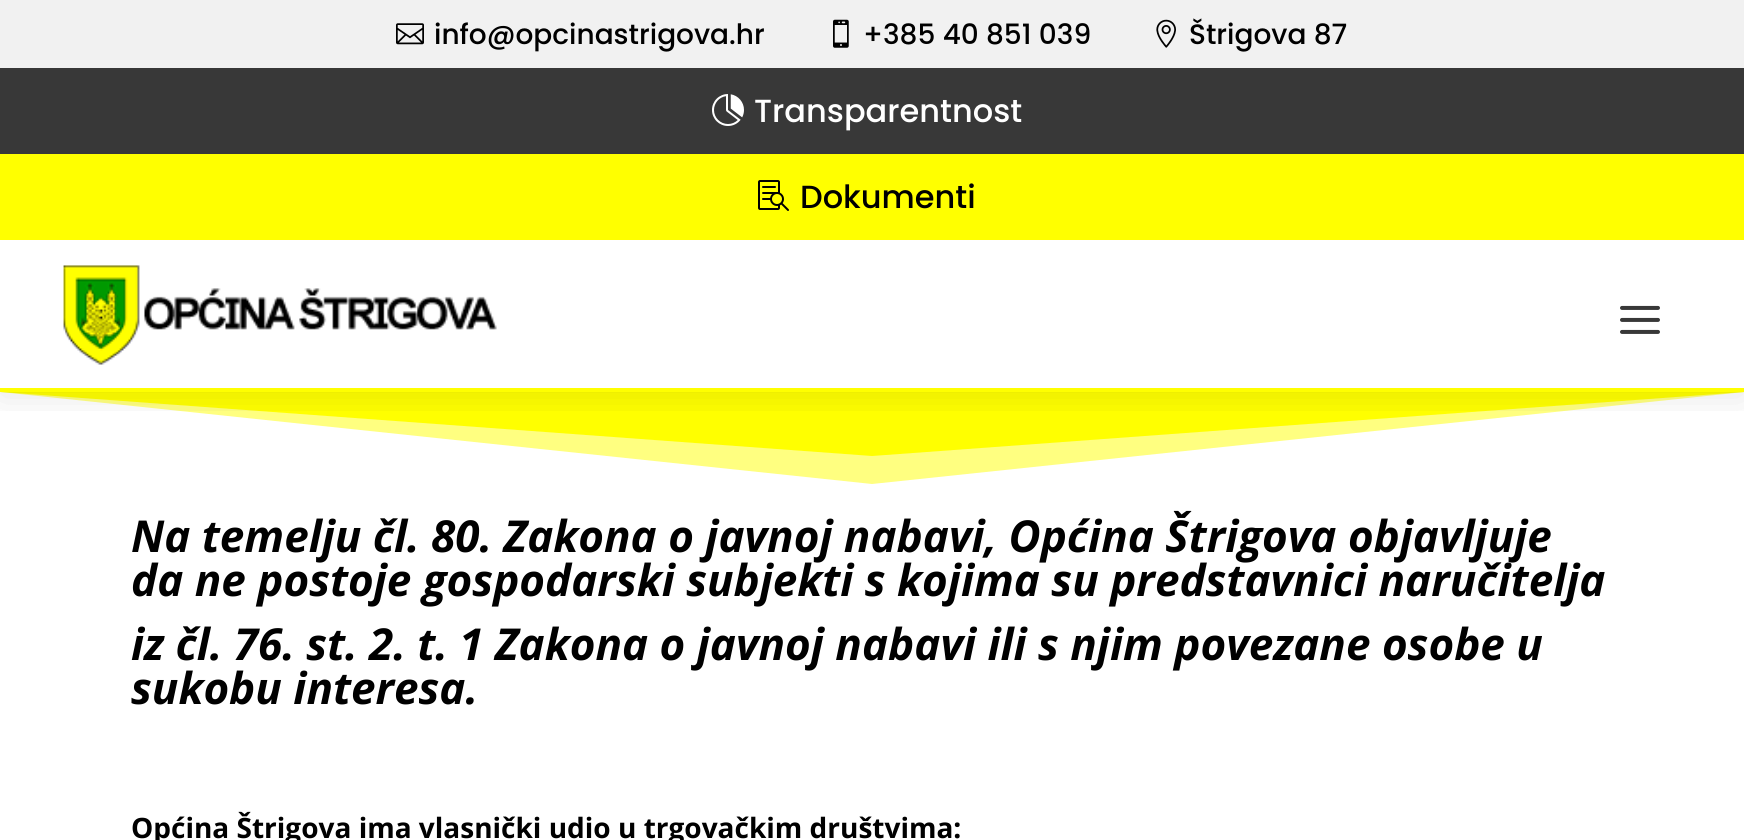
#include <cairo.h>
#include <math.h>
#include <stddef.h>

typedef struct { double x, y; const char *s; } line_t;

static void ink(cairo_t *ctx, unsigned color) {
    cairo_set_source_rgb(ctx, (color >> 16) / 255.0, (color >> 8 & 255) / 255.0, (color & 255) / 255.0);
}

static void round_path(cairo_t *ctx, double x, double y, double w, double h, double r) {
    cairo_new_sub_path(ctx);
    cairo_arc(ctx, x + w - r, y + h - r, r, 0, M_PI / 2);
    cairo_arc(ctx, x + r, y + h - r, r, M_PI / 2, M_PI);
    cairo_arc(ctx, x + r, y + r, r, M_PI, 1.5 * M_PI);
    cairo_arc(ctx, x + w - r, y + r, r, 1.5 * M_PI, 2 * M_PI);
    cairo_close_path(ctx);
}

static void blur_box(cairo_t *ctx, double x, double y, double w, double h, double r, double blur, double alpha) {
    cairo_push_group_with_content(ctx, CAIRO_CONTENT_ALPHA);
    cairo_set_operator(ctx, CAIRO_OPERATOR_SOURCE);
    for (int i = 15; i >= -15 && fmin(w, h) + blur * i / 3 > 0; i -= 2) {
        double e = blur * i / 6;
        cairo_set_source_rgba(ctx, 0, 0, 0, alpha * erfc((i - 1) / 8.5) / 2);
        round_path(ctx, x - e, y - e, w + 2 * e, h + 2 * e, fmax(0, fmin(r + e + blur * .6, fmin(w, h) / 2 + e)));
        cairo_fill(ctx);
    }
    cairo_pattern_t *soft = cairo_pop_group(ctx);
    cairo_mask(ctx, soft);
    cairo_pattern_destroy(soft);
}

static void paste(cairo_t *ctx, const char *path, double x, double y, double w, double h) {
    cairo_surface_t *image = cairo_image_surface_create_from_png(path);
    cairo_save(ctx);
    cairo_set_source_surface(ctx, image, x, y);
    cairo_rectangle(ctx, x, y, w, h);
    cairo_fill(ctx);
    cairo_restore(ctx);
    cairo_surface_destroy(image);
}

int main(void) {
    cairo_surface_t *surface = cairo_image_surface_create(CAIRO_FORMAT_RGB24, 1744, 840);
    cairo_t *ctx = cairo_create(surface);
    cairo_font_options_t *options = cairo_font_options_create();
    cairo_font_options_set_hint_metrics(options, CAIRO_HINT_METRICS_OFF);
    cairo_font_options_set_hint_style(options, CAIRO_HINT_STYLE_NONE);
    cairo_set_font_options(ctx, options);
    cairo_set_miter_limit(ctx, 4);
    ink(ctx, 0xFFFFFF);
    cairo_paint(ctx);
    ink(ctx, 0xFFFF80);
    cairo_new_path(ctx);
    cairo_move_to(ctx, 872, 484);
    cairo_line_to(ctx, 1744, 392);
    cairo_line_to(ctx, 0, 392);
    cairo_close_path(ctx);
    cairo_fill(ctx);
    ink(ctx, 0xFFFF00);
    cairo_new_path(ctx);
    cairo_move_to(ctx, 872, 456);
    cairo_line_to(ctx, 1744, 392);
    cairo_line_to(ctx, 0, 392);
    cairo_close_path(ctx);
    cairo_fill(ctx);
    cairo_save(ctx);
    cairo_rectangle(ctx, 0, 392, 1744, 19);
    cairo_clip(ctx);
    ink(ctx, 0x000000);
    blur_box(ctx, 0, 4, 1744, 392, 0, 18, 0.1);
    cairo_restore(ctx);
    cairo_rectangle(ctx, 0, 388, 1744, 4);
    cairo_fill(ctx);
    ink(ctx, 0xF1F1F1);
    cairo_rectangle(ctx, 0, 0, 1744, 68);
    cairo_fill(ctx);
    paste(ctx, "media/1.png", 396, 23, 28, 22);
    cairo_select_font_face(ctx, "Poppins Medium", CAIRO_FONT_SLANT_NORMAL, CAIRO_FONT_WEIGHT_NORMAL);
    cairo_set_font_size(ctx, 28);
    ink(ctx, 0x000000);
    cairo_move_to(ctx, 434, 44);
    cairo_show_text(ctx, "info@opcinastrigova.hr");
    paste(ctx, "media/2.png", 833, 19, 16, 29);
    cairo_move_to(ctx, 863, 44);
    cairo_show_text(ctx, "+385 40 851 039");
    paste(ctx, "media/3.png", 1156, 19, 20, 29);
    cairo_move_to(ctx, 1189, 44);
    cairo_show_text(ctx, "Štrigova 87");
    ink(ctx, 0x383838);
    cairo_rectangle(ctx, 0, 68, 1744, 86);
    cairo_fill(ctx);
    paste(ctx, "media/4.png", 712, 94, 32, 32);
    cairo_set_font_size(ctx, 32);
    ink(ctx, 0xFFFFFF);
    cairo_move_to(ctx, 754, 122);
    cairo_show_text(ctx, "Transparentnost");
    ink(ctx, 0xFFFF00);
    cairo_rectangle(ctx, 0, 154, 1744, 86);
    cairo_fill(ctx);
    paste(ctx, "media/5.png", 758, 180, 31, 31);
    ink(ctx, 0x000000);
    cairo_move_to(ctx, 800, 208);
    cairo_show_text(ctx, "Dokumenti");
    paste(ctx, "media/6.png", 63, 265, 434, 100);
    paste(ctx, "media/7.png", 1620, 305, 40, 29);
    cairo_select_font_face(ctx, "Open Sans", CAIRO_FONT_SLANT_ITALIC, CAIRO_FONT_WEIGHT_BOLD);
    cairo_set_font_size(ctx, 44);
    {
        static const line_t items[] = {
            {131, 552, "Na temelju čl. 80. Zakona o javnoj nabavi, Općina Štrigova objavljuje"},
            {131, 596, "da ne postoje gospodarski subjekti s kojima su predstavnici naručitelja"},
            {131, 660, "iz čl. 76. st. 2. t. 1 Zakona o javnoj nabavi ili s njim povezane osobe u"},
            {131, 704, "sukobu interesa."},
        };
        for (size_t i = 0; i < sizeof items / sizeof *items; i++) {
            cairo_move_to(ctx, items[i].x, items[i].y);
            cairo_show_text(ctx, items[i].s);
        }
    }
    cairo_select_font_face(ctx, "Open Sans", CAIRO_FONT_SLANT_NORMAL, CAIRO_FONT_WEIGHT_BOLD);
    cairo_set_font_size(ctx, 28);
    cairo_move_to(ctx, 131, 838);
    cairo_show_text(ctx, "Općina Štrigova ima vlasnički udio u trgovačkim društvima:");
    cairo_surface_write_to_png(surface, "image.png");
    cairo_font_options_destroy(options);
    cairo_destroy(ctx);
    cairo_surface_destroy(surface);
    return 0;
}
